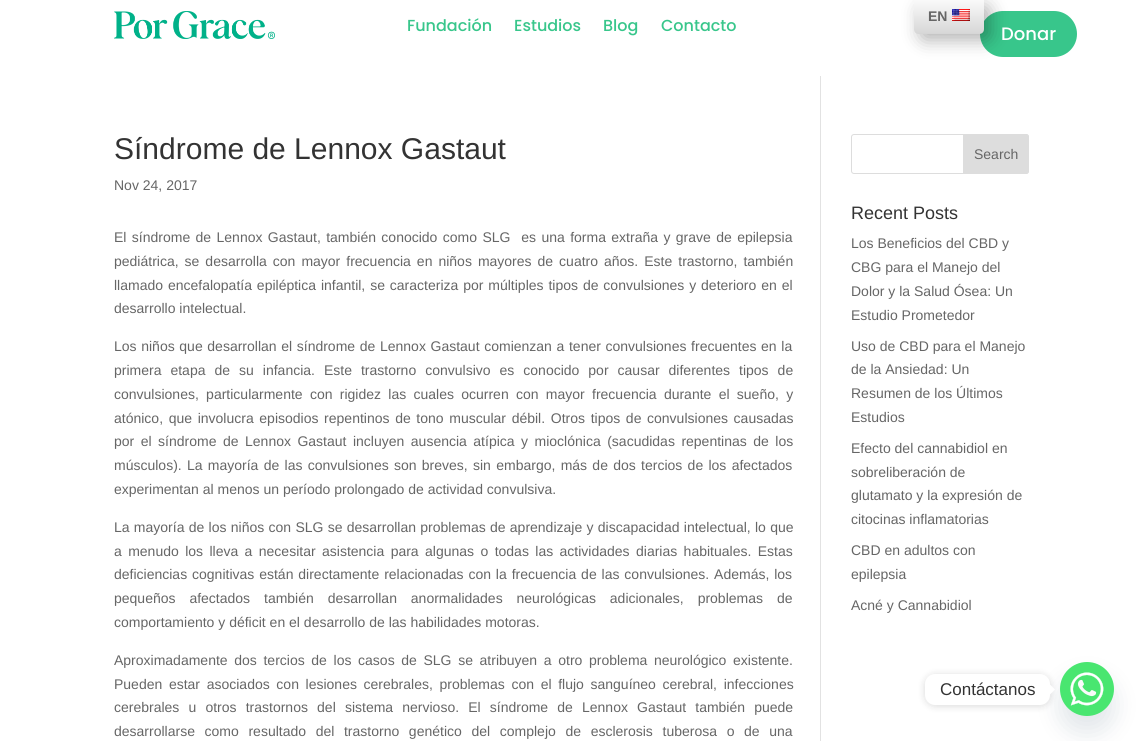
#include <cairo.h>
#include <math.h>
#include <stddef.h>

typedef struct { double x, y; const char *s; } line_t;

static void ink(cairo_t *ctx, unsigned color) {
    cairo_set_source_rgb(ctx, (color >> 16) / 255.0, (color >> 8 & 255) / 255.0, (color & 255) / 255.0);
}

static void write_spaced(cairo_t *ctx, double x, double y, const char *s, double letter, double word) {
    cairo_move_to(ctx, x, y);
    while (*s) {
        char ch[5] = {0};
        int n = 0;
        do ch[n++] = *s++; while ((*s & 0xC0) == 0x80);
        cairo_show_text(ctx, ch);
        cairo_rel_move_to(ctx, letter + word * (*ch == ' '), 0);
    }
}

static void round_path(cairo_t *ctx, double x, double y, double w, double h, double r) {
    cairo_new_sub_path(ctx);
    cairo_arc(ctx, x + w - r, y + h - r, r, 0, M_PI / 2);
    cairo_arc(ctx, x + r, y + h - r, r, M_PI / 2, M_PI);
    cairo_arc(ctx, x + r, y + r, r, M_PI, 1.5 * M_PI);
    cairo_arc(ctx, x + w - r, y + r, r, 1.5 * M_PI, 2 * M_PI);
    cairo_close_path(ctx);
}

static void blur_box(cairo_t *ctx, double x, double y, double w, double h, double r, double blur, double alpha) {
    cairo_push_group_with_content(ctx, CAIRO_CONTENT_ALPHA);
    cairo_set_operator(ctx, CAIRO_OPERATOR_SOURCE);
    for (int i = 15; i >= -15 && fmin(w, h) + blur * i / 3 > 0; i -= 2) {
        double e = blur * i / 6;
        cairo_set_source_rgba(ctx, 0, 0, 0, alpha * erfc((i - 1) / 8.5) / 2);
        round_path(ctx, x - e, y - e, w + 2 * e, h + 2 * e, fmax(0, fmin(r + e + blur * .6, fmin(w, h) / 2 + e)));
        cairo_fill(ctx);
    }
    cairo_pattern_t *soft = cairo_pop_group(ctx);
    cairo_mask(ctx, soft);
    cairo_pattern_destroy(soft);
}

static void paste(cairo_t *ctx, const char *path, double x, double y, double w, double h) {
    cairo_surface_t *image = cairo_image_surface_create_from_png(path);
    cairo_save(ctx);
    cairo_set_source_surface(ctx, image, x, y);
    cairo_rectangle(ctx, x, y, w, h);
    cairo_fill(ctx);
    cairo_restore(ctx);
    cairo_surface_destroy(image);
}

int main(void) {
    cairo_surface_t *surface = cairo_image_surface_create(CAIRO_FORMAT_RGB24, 1143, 741);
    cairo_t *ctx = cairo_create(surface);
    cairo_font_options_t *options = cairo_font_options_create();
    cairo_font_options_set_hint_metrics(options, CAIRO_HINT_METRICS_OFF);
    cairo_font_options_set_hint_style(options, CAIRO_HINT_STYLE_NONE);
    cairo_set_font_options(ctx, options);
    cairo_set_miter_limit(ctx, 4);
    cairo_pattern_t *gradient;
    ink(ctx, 0xFFFFFF);
    cairo_paint(ctx);
    paste(ctx, "media/1.png", 114, 11, 161, 28);
    cairo_select_font_face(ctx, "Poppins Medium", CAIRO_FONT_SLANT_NORMAL, CAIRO_FONT_WEIGHT_NORMAL);
    cairo_set_font_size(ctx, 16);
    ink(ctx, 0x38C68B);
    {
        static const line_t items[] = {
            {407, 31, "Fundación"},
            {514, 31, "Estudios"},
            {603, 31, "Blog"},
            {661, 31, "Contacto"},
        };
        for (size_t i = 0; i < sizeof items / sizeof *items; i++) {
            cairo_move_to(ctx, items[i].x, items[i].y);
            cairo_show_text(ctx, items[i].s);
        }
    }
    round_path(ctx, 980, 11, 97, 46, 23);
    cairo_fill(ctx);
    ink(ctx, 0x000000);
    blur_box(ctx, 920, 6, 70, 34, 5, 9, 0.3);
    gradient = cairo_pattern_create_linear(949, 34, 949, 0);
    cairo_pattern_add_color_stop_rgba(gradient, 0, 0.839, 0.839, 0.839, 1);
    cairo_pattern_add_color_stop_rgba(gradient, 1, 0.98, 0.98, 0.98, 1);
    cairo_set_source(ctx, gradient);
    cairo_pattern_destroy(gradient);
    cairo_new_path(ctx);
    cairo_move_to(ctx, 914, 0);
    cairo_line_to(ctx, 984, 0);
    cairo_line_to(ctx, 984, 29);
    cairo_curve_to(ctx, 984, 32, 982, 34, 979, 34);
    cairo_line_to(ctx, 919, 34);
    cairo_curve_to(ctx, 916, 34, 914, 32, 914, 29);
    cairo_close_path(ctx);
    cairo_fill(ctx);
    cairo_select_font_face(ctx, "Liberation Sans", CAIRO_FONT_SLANT_NORMAL, CAIRO_FONT_WEIGHT_BOLD);
    cairo_set_font_size(ctx, 14);
    ink(ctx, 0x666666);
    cairo_move_to(ctx, 928, 21);
    cairo_show_text(ctx, "EN");
    paste(ctx, "media/2.png", 952, 9, 18, 12);
    cairo_select_font_face(ctx, "Poppins Medium", CAIRO_FONT_SLANT_NORMAL, CAIRO_FONT_WEIGHT_NORMAL);
    cairo_set_font_size(ctx, 18);
    ink(ctx, 0xFFFFFF);
    cairo_move_to(ctx, 1001, 40);
    cairo_show_text(ctx, "Donar");
    ink(ctx, 0xE2E2E2);
    cairo_rectangle(ctx, 820, 76, 1, 665);
    cairo_fill(ctx);
    cairo_select_font_face(ctx, "Liberation Sans", CAIRO_FONT_SLANT_NORMAL, CAIRO_FONT_WEIGHT_NORMAL);
    cairo_set_font_size(ctx, 30);
    ink(ctx, 0x333333);
    cairo_move_to(ctx, 114, 159);
    cairo_show_text(ctx, "Síndrome de Lennox Gastaut");
    cairo_set_font_size(ctx, 14);
    ink(ctx, 0x666666);
    cairo_move_to(ctx, 114, 190);
    cairo_show_text(ctx, "Nov 24, 2017");
    write_spaced(ctx, 114, 242, "El síndrome de Lennox Gastaut, también conocido como SLG  es una forma extraña y grave de epilepsia", 0, 1.5);
    write_spaced(ctx, 114, 266, "pediátrica, se desarrolla con mayor frecuencia en niños mayores de cuatro años. Este trastorno, también", 0, 2.1);
    write_spaced(ctx, 114, 290, "llamado encefalopatía epiléptica infantil, se caracteriza por múltiples tipos de convulsiones y deterioro en el", 0, 1);
    cairo_move_to(ctx, 114, 313);
    cairo_show_text(ctx, "desarrollo intelectual.");
    write_spaced(ctx, 114, 351, "Los niños que desarrollan el síndrome de Lennox Gastaut comienzan a tener convulsiones frecuentes en la", 0, 0.75);
    write_spaced(ctx, 114, 375, "primera etapa de su infancia. Este trastorno convulsivo es conocido por causar diferentes tipos de", 0, 5.1);
    write_spaced(ctx, 114, 399, "convulsiones, particularmente con rigidez las cuales ocurren con mayor frecuencia durante el sueño, y", 0, 3.4);
    write_spaced(ctx, 114, 423, "atónico, que involucra episodios repentinos de tono muscular débil. Otros tipos de convulsiones causadas", 0, 1.75);
    write_spaced(ctx, 114, 446, "por el síndrome de Lennox Gastaut incluyen ausencia atípica y mioclónica (sacudidas repentinas de los", 0, 2.6);
    write_spaced(ctx, 114, 470, "músculos). La mayoría de las convulsiones son breves, sin embargo, más de dos tercios de los afectados", 0, 1.4);
    cairo_move_to(ctx, 114, 494);
    cairo_show_text(ctx, "experimentan al menos un período prolongado de actividad convulsiva.");
    write_spaced(ctx, 114, 532, "La mayoría de los niños con SLG se desarrollan problemas de aprendizaje y discapacidad intelectual, lo que", 0, 0.4);
    write_spaced(ctx, 114, 556, "a menudo los lleva a necesitar asistencia para algunas o todas las actividades diarias habituales. Estas", 0, 2.5);
    write_spaced(ctx, 114, 579, "deficiencias cognitivas están directamente relacionadas con la frecuencia de las convulsiones. Además, los", 0, 1);
    write_spaced(ctx, 114, 603, "pequeños afectados también desarrollan anormalidades neurológicas adicionales, problemas de", 0, 10);
    cairo_move_to(ctx, 114, 627);
    cairo_show_text(ctx, "comportamiento y déficit en el desarrollo de las habilidades motoras.");
    write_spaced(ctx, 114, 665, "Aproximadamente dos tercios de los casos de SLG se atribuyen a otro problema neurológico existente.", 0, 2.75);
    write_spaced(ctx, 114, 689, "Pueden estar asociados con lesiones cerebrales, problemas con el flujo sanguíneo cerebral, infecciones", 0, 2.75);
    write_spaced(ctx, 114, 712, "cerebrales u otros trastornos del sistema nervioso. El síndrome de Lennox Gastaut también puede", 0, 5.25);
    write_spaced(ctx, 114, 736, "desarrollarse como resultado del trastorno genético del complejo de esclerosis tuberosa o de una", 0, 5.75);
    round_path(ctx, 851.5, 134.5, 177, 39, 2.5);
    ink(ctx, 0xDDDDDD);
    cairo_set_line_width(ctx, 1);
    cairo_stroke(ctx);
    cairo_new_path(ctx);
    cairo_move_to(ctx, 963.5, 134.5);
    cairo_line_to(ctx, 1026, 134.5);
    cairo_curve_to(ctx, 1027.5, 134.5, 1028.5, 135.5, 1028.5, 137);
    cairo_line_to(ctx, 1028.5, 171);
    cairo_curve_to(ctx, 1028.5, 172.5, 1027.5, 173.5, 1026, 173.5);
    cairo_line_to(ctx, 963.5, 173.5);
    cairo_close_path(ctx);
    cairo_fill_preserve(ctx);
    cairo_stroke(ctx);
    ink(ctx, 0x666666);
    cairo_move_to(ctx, 974, 159);
    cairo_show_text(ctx, "Search");
    cairo_set_font_size(ctx, 18);
    ink(ctx, 0x333333);
    cairo_move_to(ctx, 851, 219);
    cairo_show_text(ctx, "Recent Posts");
    cairo_set_font_size(ctx, 14);
    ink(ctx, 0x666666);
    {
        static const line_t items[] = {
            {851, 248, "Los Beneficios del CBD y"},
            {851, 272, "CBG para el Manejo del"},
            {851, 296, "Dolor y la Salud Ósea: Un"},
            {851, 320, "Estudio Prometedor"},
            {851, 351, "Uso de CBD para el Manejo"},
            {851, 374, "de la Ansiedad: Un"},
            {851, 398, "Resumen de los Últimos"},
            {851, 422, "Estudios"},
            {851, 453, "Efecto del cannabidiol en"},
            {851, 477, "sobreliberación de"},
            {851, 500, "glutamato y la expresión de"},
            {851, 524, "citocinas inflamatorias"},
            {851, 555, "CBD en adultos con"},
            {851, 579, "epilepsia"},
            {851, 610, "Acné y Cannabidiol"},
        };
        for (size_t i = 0; i < sizeof items / sizeof *items; i++) {
            cairo_move_to(ctx, items[i].x, items[i].y);
            cairo_show_text(ctx, items[i].s);
        }
    }
    ink(ctx, 0x49687E);
    blur_box(ctx, 1060, 678, 54, 54, 27, 12, 0.16);
    paste(ctx, "media/3.png", 1060, 662, 54, 54);
    ink(ctx, 0x000000);
    blur_box(ctx, 925, 675, 125, 31, 10, 4, 0.15);
    ink(ctx, 0xFFFFFF);
    round_path(ctx, 925, 674, 125, 31, 10);
    cairo_fill(ctx);
    cairo_set_font_size(ctx, 17);
    ink(ctx, 0x333333);
    cairo_move_to(ctx, 940, 695);
    cairo_show_text(ctx, "Contáctanos");
    ink(ctx, 0xFFFFFF);
    cairo_new_path(ctx);
    cairo_move_to(ctx, 1050, 694.5);
    cairo_line_to(ctx, 1050, 684.5);
    cairo_line_to(ctx, 1055, 689.5);
    cairo_close_path(ctx);
    cairo_fill(ctx);
    cairo_surface_write_to_png(surface, "image.png");
    cairo_font_options_destroy(options);
    cairo_destroy(ctx);
    cairo_surface_destroy(surface);
    return 0;
}
